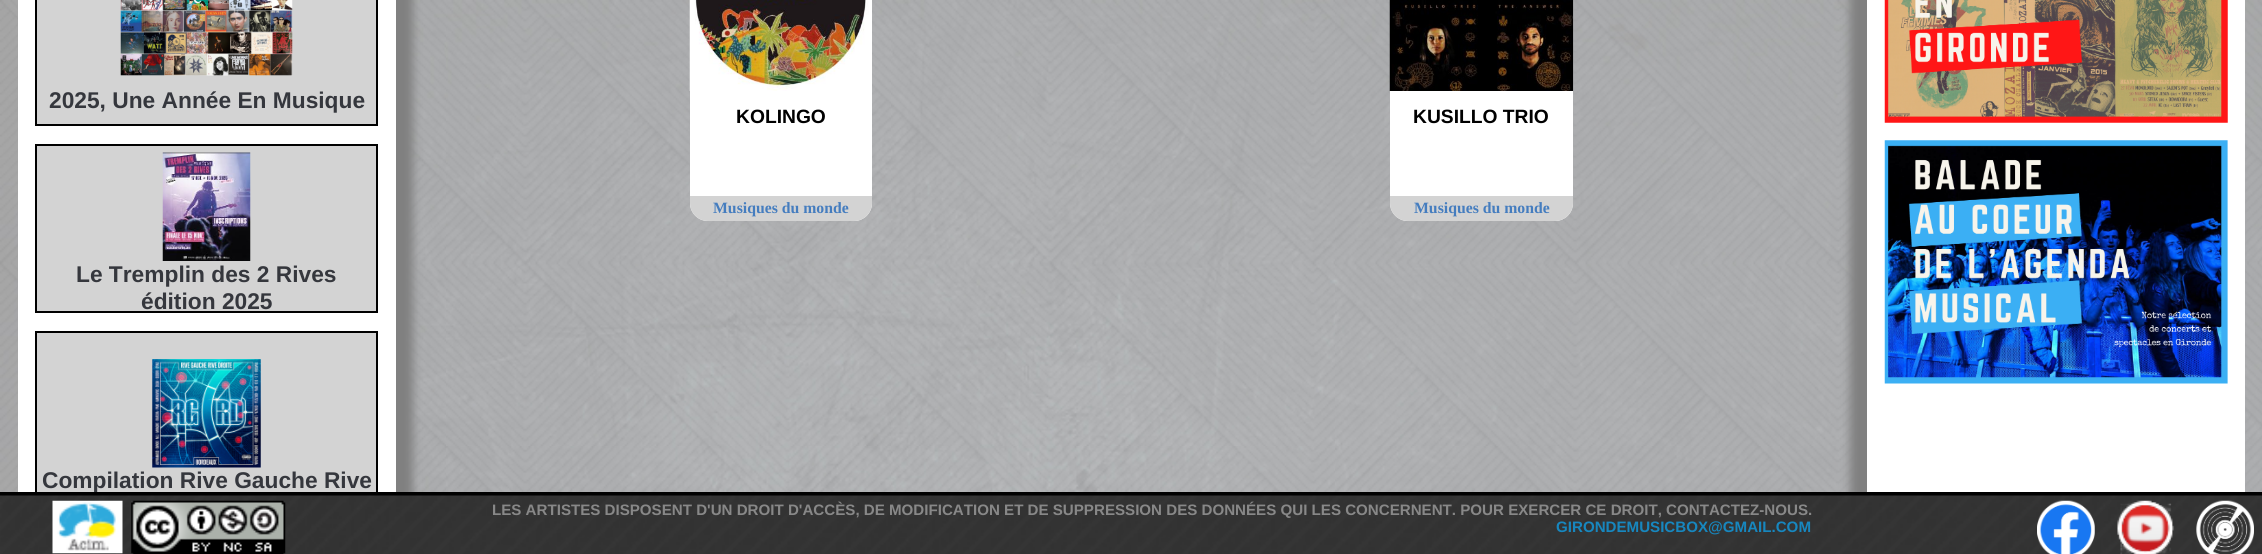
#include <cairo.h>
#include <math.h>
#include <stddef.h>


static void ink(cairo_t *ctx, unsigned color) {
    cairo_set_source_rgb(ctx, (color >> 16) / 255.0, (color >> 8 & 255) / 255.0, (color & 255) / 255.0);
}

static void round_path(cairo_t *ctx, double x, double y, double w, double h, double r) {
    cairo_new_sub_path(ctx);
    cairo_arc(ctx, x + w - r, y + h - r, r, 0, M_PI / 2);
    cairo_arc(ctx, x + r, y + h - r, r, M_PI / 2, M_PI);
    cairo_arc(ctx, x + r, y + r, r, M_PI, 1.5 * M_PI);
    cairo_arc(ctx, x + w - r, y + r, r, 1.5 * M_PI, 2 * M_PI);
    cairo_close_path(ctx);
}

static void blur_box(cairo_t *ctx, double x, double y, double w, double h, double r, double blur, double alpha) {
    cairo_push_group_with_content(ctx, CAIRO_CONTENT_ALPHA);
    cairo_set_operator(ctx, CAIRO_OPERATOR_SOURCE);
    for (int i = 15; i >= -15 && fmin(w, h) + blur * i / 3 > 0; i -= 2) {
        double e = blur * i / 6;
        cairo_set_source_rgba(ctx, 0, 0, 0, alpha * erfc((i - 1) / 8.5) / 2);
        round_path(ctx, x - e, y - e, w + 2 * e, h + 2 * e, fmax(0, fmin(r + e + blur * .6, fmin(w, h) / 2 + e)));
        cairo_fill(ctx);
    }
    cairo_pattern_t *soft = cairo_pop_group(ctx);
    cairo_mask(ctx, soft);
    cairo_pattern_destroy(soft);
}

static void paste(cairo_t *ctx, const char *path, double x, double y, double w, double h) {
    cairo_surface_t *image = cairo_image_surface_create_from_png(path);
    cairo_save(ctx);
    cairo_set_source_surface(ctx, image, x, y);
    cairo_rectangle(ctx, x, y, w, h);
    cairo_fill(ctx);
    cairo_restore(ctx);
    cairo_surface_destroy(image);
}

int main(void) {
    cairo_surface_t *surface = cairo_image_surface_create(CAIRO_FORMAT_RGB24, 2262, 554);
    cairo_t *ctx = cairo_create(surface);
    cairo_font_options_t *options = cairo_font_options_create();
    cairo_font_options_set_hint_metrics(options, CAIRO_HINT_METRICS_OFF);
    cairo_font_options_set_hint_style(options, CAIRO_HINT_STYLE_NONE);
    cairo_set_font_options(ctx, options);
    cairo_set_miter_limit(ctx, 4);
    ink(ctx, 0xFFFFFF);
    cairo_paint(ctx);
    paste(ctx, "media/1.png", 0, 0, 2262, 492);
    ink(ctx, 0x808080);
    blur_box(ctx, 35, -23, 378, 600, 9, 4.5, 1);
    ink(ctx, 0xFFFFFF);
    cairo_rectangle(ctx, 18, 0, 378, 492);
    cairo_fill(ctx);
    ink(ctx, 0xD3D3D3);
    cairo_rectangle(ctx, 36, -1, 341, 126);
    cairo_fill_preserve(ctx);
    ink(ctx, 0x000000);
    cairo_stroke(ctx);
    paste(ctx, "media/2.png", 120, 0, 173, 76);
    cairo_select_font_face(ctx, "Liberation Sans", CAIRO_FONT_SLANT_NORMAL, CAIRO_FONT_WEIGHT_BOLD);
    cairo_set_font_size(ctx, 22.75);
    ink(ctx, 0x35373D);
    cairo_move_to(ctx, 49, 108);
    cairo_show_text(ctx, "2025, Une Année En Musique");
    ink(ctx, 0xD3D3D3);
    cairo_rectangle(ctx, 36, 145, 341, 167);
    cairo_fill_preserve(ctx);
    ink(ctx, 0x000000);
    cairo_stroke(ctx);
    paste(ctx, "media/3.png", 162, 152, 89, 109);
    ink(ctx, 0x35373D);
    cairo_move_to(ctx, 76, 282);
    cairo_show_text(ctx, "Le Tremplin des 2 Rives");
    cairo_move_to(ctx, 141, 309);
    cairo_show_text(ctx, "édition 2025");
    ink(ctx, 0xD3D3D3);
    cairo_rectangle(ctx, 37, 333, 339, 159);
    cairo_fill(ctx);
    cairo_rectangle(ctx, 36, 332, 341, 166);
    ink(ctx, 0x000000);
    cairo_stroke(ctx);
    paste(ctx, "media/4.png", 152, 359, 109, 109);
    ink(ctx, 0x35373D);
    cairo_move_to(ctx, 42, 488);
    cairo_show_text(ctx, "Compilation Rive Gauche Rive");
    ink(ctx, 0xFFFFFF);
    cairo_rectangle(ctx, 871, 0, 1, 91);
    cairo_fill(ctx);
    paste(ctx, "media/5.png", 689, 0, 182, 91);
    cairo_new_path(ctx);
    cairo_move_to(ctx, 690, 91);
    cairo_line_to(ctx, 872, 91);
    cairo_line_to(ctx, 872, 203);
    cairo_curve_to(ctx, 872, 213, 864, 221, 854, 221);
    cairo_line_to(ctx, 708, 221);
    cairo_curve_to(ctx, 698, 221, 690, 213, 690, 203);
    cairo_close_path(ctx);
    cairo_fill(ctx);
    cairo_set_font_size(ctx, 19.25);
    ink(ctx, 0x000000);
    cairo_move_to(ctx, 736, 123);
    cairo_show_text(ctx, "KOLINGO");
    ink(ctx, 0xD3D3D3);
    cairo_new_path(ctx);
    cairo_move_to(ctx, 690, 196);
    cairo_line_to(ctx, 872, 196);
    cairo_line_to(ctx, 872, 203);
    cairo_curve_to(ctx, 872, 213, 864, 221, 854, 221);
    cairo_line_to(ctx, 708, 221);
    cairo_curve_to(ctx, 698, 221, 690, 213, 690, 203);
    cairo_close_path(ctx);
    cairo_fill(ctx);
    cairo_select_font_face(ctx, "Liberation Serif", CAIRO_FONT_SLANT_NORMAL, CAIRO_FONT_WEIGHT_BOLD);
    cairo_set_font_size(ctx, 15.75);
    ink(ctx, 0x457DBF);
    cairo_move_to(ctx, 713, 213);
    cairo_show_text(ctx, "Musiques du monde");
    paste(ctx, "media/6.png", 1389, 0, 185, 91);
    ink(ctx, 0xFFFFFF);
    cairo_new_path(ctx);
    cairo_move_to(ctx, 1390, 91);
    cairo_line_to(ctx, 1573, 91);
    cairo_line_to(ctx, 1573, 203);
    cairo_curve_to(ctx, 1573, 213, 1565, 221, 1555, 221);
    cairo_line_to(ctx, 1408, 221);
    cairo_curve_to(ctx, 1398, 221, 1390, 213, 1390, 203);
    cairo_close_path(ctx);
    cairo_fill(ctx);
    cairo_select_font_face(ctx, "Liberation Sans", CAIRO_FONT_SLANT_NORMAL, CAIRO_FONT_WEIGHT_BOLD);
    cairo_set_font_size(ctx, 19.25);
    ink(ctx, 0x000000);
    cairo_move_to(ctx, 1413, 123);
    cairo_show_text(ctx, "KUSILLO TRIO");
    ink(ctx, 0xD3D3D3);
    cairo_new_path(ctx);
    cairo_move_to(ctx, 1390, 196);
    cairo_line_to(ctx, 1573, 196);
    cairo_line_to(ctx, 1573, 203);
    cairo_curve_to(ctx, 1573, 213, 1565, 221, 1555, 221);
    cairo_line_to(ctx, 1408, 221);
    cairo_curve_to(ctx, 1398, 221, 1390, 213, 1390, 203);
    cairo_close_path(ctx);
    cairo_fill(ctx);
    cairo_select_font_face(ctx, "Liberation Serif", CAIRO_FONT_SLANT_NORMAL, CAIRO_FONT_WEIGHT_BOLD);
    cairo_set_font_size(ctx, 15.75);
    ink(ctx, 0x457DBF);
    cairo_move_to(ctx, 1414, 213);
    cairo_show_text(ctx, "Musiques du monde");
    ink(ctx, 0x808080);
    blur_box(ctx, 1850, -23, 378, 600, 9, 4.5, 1);
    ink(ctx, 0xFFFFFF);
    cairo_rectangle(ctx, 1867, 0, 378, 492);
    cairo_fill(ctx);
    paste(ctx, "media/7.png", 1884, 0, 344, 123);
    paste(ctx, "media/8.png", 1884, 140, 344, 244);
    paste(ctx, "media/9.png", 0, 492, 2262, 62);
    paste(ctx, "media/10.png", 52, 500, 71, 54);
    paste(ctx, "media/11.png", 131, 500, 155, 54);
    cairo_select_font_face(ctx, "Liberation Sans", CAIRO_FONT_SLANT_NORMAL, CAIRO_FONT_WEIGHT_BOLD);
    cairo_set_font_size(ctx, 15.12);
    ink(ctx, 0x888888);
    cairo_move_to(ctx, 492, 515);
    cairo_show_text(ctx, "LES ARTISTES DISPOSENT D'UN DROIT D'ACCÈS, DE MODIFICATION ET DE SUPPRESSION DES DONNÉES QUI LES CONCERNENT. POUR EXERCER CE DROIT, CONTACTEZ-NOUS.");
    ink(ctx, 0x1787BF);
    cairo_move_to(ctx, 1556, 532);
    cairo_show_text(ctx, "GIRONDEMUSICBOX@GMAIL.COM");
    paste(ctx, "media/12.png", 2037, 500, 58, 54);
    paste(ctx, "media/13.png", 2117, 500, 58, 54);
    paste(ctx, "media/14.png", 2196, 500, 58, 54);
    cairo_surface_write_to_png(surface, "image.png");
    cairo_font_options_destroy(options);
    cairo_destroy(ctx);
    cairo_surface_destroy(surface);
    return 0;
}
